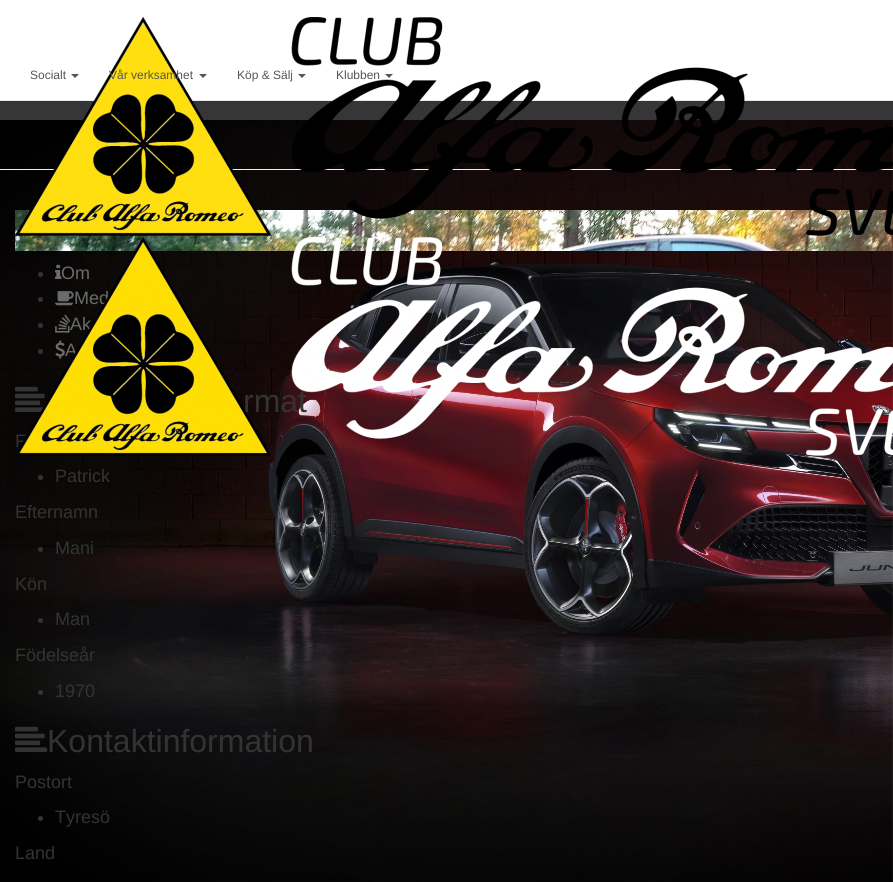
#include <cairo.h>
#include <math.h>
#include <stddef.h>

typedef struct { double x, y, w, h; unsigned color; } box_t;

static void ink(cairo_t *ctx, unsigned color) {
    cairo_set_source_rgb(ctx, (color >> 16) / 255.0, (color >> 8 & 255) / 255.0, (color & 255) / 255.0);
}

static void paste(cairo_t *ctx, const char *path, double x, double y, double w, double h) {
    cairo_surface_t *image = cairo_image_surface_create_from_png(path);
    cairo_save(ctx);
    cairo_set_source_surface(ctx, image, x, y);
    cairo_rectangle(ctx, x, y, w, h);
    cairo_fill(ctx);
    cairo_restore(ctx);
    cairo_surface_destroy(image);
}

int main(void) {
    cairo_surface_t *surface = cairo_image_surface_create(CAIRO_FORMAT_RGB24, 893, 882);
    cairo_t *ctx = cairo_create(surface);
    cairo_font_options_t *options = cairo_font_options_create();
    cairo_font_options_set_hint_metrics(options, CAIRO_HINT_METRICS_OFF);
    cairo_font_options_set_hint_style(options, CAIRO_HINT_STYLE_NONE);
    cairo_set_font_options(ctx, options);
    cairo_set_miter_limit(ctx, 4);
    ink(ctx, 0xFFFFFF);
    cairo_paint(ctx);
    paste(ctx, "media/1.png", 0, 120, 893, 762);
    {
        static const box_t items[] = {
            {0, 100, 893, 1, 0xE7E7E7},
            {0, 101, 893, 19, 0x363537},
            {0, 169, 893, 1, 0xEEEEEE},
        };
        for (size_t i = 0; i < sizeof items / sizeof *items; i++) {
            ink(ctx, items[i].color);
            cairo_rectangle(ctx, items[i].x, items[i].y, items[i].w, items[i].h);
            cairo_fill(ctx);
        }
    }
    paste(ctx, "media/4.png", 15, 210, 878, 41);
    paste(ctx, "media/2.png", 15, 17, 878, 219);
    ink(ctx, 0x333333);
    cairo_arc(ctx, 40.5, 274.5, 2.5, 0, 2 * M_PI);
    cairo_fill(ctx);
    paste(ctx, "media/5.png", 55, 264, 7, 15);
    cairo_select_font_face(ctx, "Liberation Sans", CAIRO_FONT_SLANT_NORMAL, CAIRO_FONT_WEIGHT_NORMAL);
    cairo_set_font_size(ctx, 18);
    ink(ctx, 0x6B6B6B);
    cairo_move_to(ctx, 61, 279);
    cairo_show_text(ctx, "Om");
    ink(ctx, 0x333333);
    cairo_new_path(ctx);
    cairo_arc(ctx, 40.5, 299.5, 2.5, 0, 2 * M_PI);
    cairo_fill(ctx);
    paste(ctx, "media/6.png", 55, 291, 19, 15);
    ink(ctx, 0x6B6B6B);
    cairo_move_to(ctx, 74, 304);
    cairo_show_text(ctx, "Med");
    ink(ctx, 0x333333);
    cairo_new_path(ctx);
    cairo_arc(ctx, 40.5, 325.5, 2.5, 0, 2 * M_PI);
    cairo_fill(ctx);
    paste(ctx, "media/7.png", 55, 314, 16, 19);
    ink(ctx, 0x6B6B6B);
    cairo_move_to(ctx, 70, 330);
    cairo_show_text(ctx, "Ak");
    ink(ctx, 0x333333);
    cairo_new_path(ctx);
    cairo_arc(ctx, 40.5, 351.5, 2.5, 0, 2 * M_PI);
    cairo_fill(ctx);
    paste(ctx, "media/8.png", 55, 340, 10, 19);
    ink(ctx, 0x6B6B6B);
    cairo_move_to(ctx, 65, 356);
    cairo_show_text(ctx, "A");
    paste(ctx, "media/9.png", 15, 386, 32, 26);
    cairo_set_font_size(ctx, 32);
    ink(ctx, 0x333333);
    cairo_move_to(ctx, 243, 412);
    cairo_show_text(ctx, "rmat");
    cairo_set_font_size(ctx, 18);
    cairo_move_to(ctx, 15, 447);
    cairo_show_text(ctx, "F");
    paste(ctx, "media/3.png", 15, 237, 878, 219);
    cairo_set_font_size(ctx, 12);
    ink(ctx, 0x555555);
    cairo_move_to(ctx, 30, 79);
    cairo_show_text(ctx, "Socialt");
    cairo_new_path(ctx);
    cairo_move_to(ctx, 71, 74);
    cairo_line_to(ctx, 79, 74);
    cairo_line_to(ctx, 75, 78);
    cairo_close_path(ctx);
    cairo_fill(ctx);
    cairo_move_to(ctx, 109, 79);
    cairo_show_text(ctx, "Vår verksamhet");
    cairo_new_path(ctx);
    cairo_move_to(ctx, 199, 74);
    cairo_line_to(ctx, 207, 74);
    cairo_line_to(ctx, 203, 78);
    cairo_close_path(ctx);
    cairo_fill(ctx);
    cairo_move_to(ctx, 237, 79);
    cairo_show_text(ctx, "Köp & Sälj");
    cairo_new_path(ctx);
    cairo_move_to(ctx, 298, 74);
    cairo_line_to(ctx, 306, 74);
    cairo_line_to(ctx, 302, 78);
    cairo_close_path(ctx);
    cairo_fill(ctx);
    cairo_move_to(ctx, 336, 79);
    cairo_show_text(ctx, "Klubben");
    cairo_new_path(ctx);
    cairo_move_to(ctx, 385, 74);
    cairo_line_to(ctx, 393, 74);
    cairo_line_to(ctx, 389, 78);
    cairo_close_path(ctx);
    cairo_fill(ctx);
    ink(ctx, 0x333333);
    cairo_arc(ctx, 40.5, 477.5, 2.5, 0, 2 * M_PI);
    cairo_fill(ctx);
    cairo_set_font_size(ctx, 18);
    cairo_move_to(ctx, 55, 482);
    cairo_show_text(ctx, "Patrick");
    cairo_move_to(ctx, 15, 518);
    cairo_show_text(ctx, "Efternamn");
    cairo_new_path(ctx);
    cairo_arc(ctx, 40.5, 549.5, 2.5, 0, 2 * M_PI);
    cairo_fill(ctx);
    cairo_move_to(ctx, 55, 554);
    cairo_show_text(ctx, "Mani");
    cairo_move_to(ctx, 15, 590);
    cairo_show_text(ctx, "Kön");
    cairo_new_path(ctx);
    cairo_arc(ctx, 40.5, 620.5, 2.5, 0, 2 * M_PI);
    cairo_fill(ctx);
    cairo_move_to(ctx, 55, 625);
    cairo_show_text(ctx, "Man");
    cairo_move_to(ctx, 15, 661);
    cairo_show_text(ctx, "Födelseår");
    cairo_new_path(ctx);
    cairo_arc(ctx, 40.5, 692.5, 2.5, 0, 2 * M_PI);
    cairo_fill(ctx);
    cairo_move_to(ctx, 55, 697);
    cairo_show_text(ctx, "1970");
    paste(ctx, "media/10.png", 15, 726, 32, 26);
    cairo_set_font_size(ctx, 32);
    cairo_move_to(ctx, 47, 752);
    cairo_show_text(ctx, "Kontaktinformation");
    cairo_set_font_size(ctx, 18);
    cairo_move_to(ctx, 15, 788);
    cairo_show_text(ctx, "Postort");
    cairo_new_path(ctx);
    cairo_arc(ctx, 40.5, 818.5, 2.5, 0, 2 * M_PI);
    cairo_fill(ctx);
    cairo_move_to(ctx, 55, 823);
    cairo_show_text(ctx, "Tyresö");
    cairo_move_to(ctx, 15, 859);
    cairo_show_text(ctx, "Land");
    cairo_surface_write_to_png(surface, "image.png");
    cairo_font_options_destroy(options);
    cairo_destroy(ctx);
    cairo_surface_destroy(surface);
    return 0;
}
